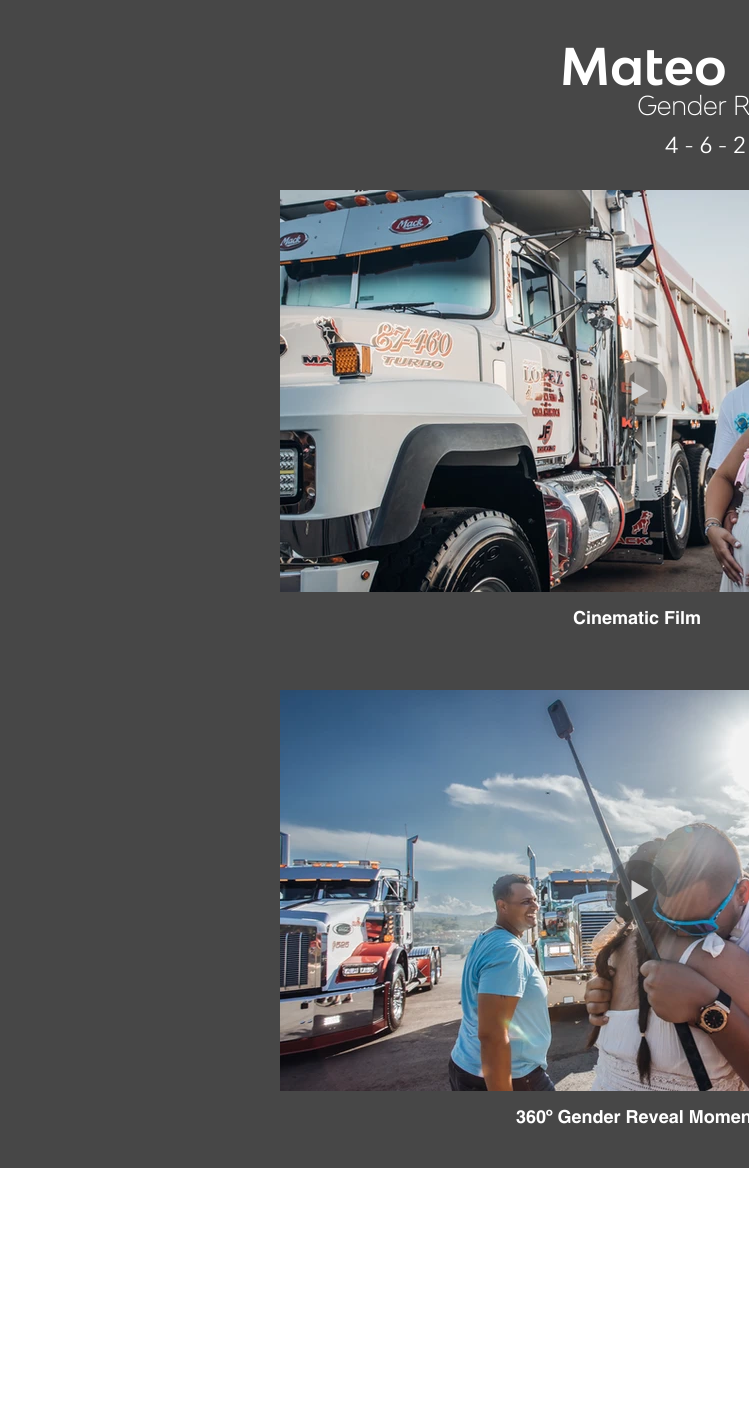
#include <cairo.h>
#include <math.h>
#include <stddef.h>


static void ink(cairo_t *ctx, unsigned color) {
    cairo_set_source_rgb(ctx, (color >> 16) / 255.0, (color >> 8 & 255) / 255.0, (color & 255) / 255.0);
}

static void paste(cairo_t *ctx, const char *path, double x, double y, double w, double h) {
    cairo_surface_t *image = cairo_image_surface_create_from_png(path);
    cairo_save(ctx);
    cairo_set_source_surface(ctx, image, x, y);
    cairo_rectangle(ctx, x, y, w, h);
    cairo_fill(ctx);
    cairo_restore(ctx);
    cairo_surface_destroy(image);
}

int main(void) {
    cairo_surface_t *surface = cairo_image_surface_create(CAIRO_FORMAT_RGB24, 749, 1403);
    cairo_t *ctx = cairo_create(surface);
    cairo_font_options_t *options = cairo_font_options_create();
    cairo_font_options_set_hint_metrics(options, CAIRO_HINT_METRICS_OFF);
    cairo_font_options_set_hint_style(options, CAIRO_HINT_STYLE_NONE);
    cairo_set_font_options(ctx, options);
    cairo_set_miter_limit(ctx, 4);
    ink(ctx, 0xFFFFFF);
    cairo_paint(ctx);
    ink(ctx, 0x474747);
    cairo_rectangle(ctx, 0, 0, 749, 1168);
    cairo_fill(ctx);
    cairo_select_font_face(ctx, "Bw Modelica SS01", CAIRO_FONT_SLANT_NORMAL, CAIRO_FONT_WEIGHT_BOLD);
    cairo_set_font_size(ctx, 50);
    ink(ctx, 0xFFFFFF);
    cairo_move_to(ctx, 560, 85);
    cairo_show_text(ctx, "Mateo");
    cairo_select_font_face(ctx, "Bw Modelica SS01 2", CAIRO_FONT_SLANT_NORMAL, CAIRO_FONT_WEIGHT_BOLD);
    cairo_set_font_size(ctx, 25);
    cairo_move_to(ctx, 637, 115);
    cairo_show_text(ctx, "Gender R");
    cairo_select_font_face(ctx, "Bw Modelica", CAIRO_FONT_SLANT_NORMAL, CAIRO_FONT_WEIGHT_NORMAL);
    cairo_set_font_size(ctx, 22);
    cairo_move_to(ctx, 665, 153);
    cairo_show_text(ctx, "4 - 6 - 2");
    paste(ctx, "media/1.png", 280, 190, 469, 402);
    cairo_set_source_rgba(ctx, 0.278, 0.278, 0.278, 0.42);
    cairo_set_fill_rule(ctx, CAIRO_FILL_RULE_EVEN_ODD);
    cairo_new_path(ctx);
    cairo_move_to(ctx, 637, 361);
    cairo_curve_to(ctx, 654, 361, 667, 374, 667, 391);
    cairo_curve_to(ctx, 667, 408, 654, 421, 637, 421);
    cairo_curve_to(ctx, 620, 421, 607, 408, 607, 391);
    cairo_curve_to(ctx, 607, 374, 620, 361, 637, 361);
    cairo_close_path(ctx);
    cairo_fill(ctx);
    ink(ctx, 0xD1D1D1);
    cairo_set_fill_rule(ctx, CAIRO_FILL_RULE_WINDING);
    cairo_new_path(ctx);
    cairo_move_to(ctx, 648.5, 391);
    cairo_line_to(ctx, 631.5, 401);
    cairo_line_to(ctx, 631.5, 381);
    cairo_close_path(ctx);
    cairo_fill(ctx);
    cairo_select_font_face(ctx, "helvetica", CAIRO_FONT_SLANT_NORMAL, CAIRO_FONT_WEIGHT_BOLD);
    cairo_set_font_size(ctx, 18);
    ink(ctx, 0xFFFFFF);
    cairo_move_to(ctx, 573, 624);
    cairo_show_text(ctx, "Cinematic Film");
    paste(ctx, "media/2.png", 280, 690, 469, 401);
    cairo_set_source_rgba(ctx, 0.278, 0.278, 0.278, 0.42);
    cairo_set_fill_rule(ctx, CAIRO_FILL_RULE_EVEN_ODD);
    cairo_new_path(ctx);
    cairo_move_to(ctx, 637, 860);
    cairo_curve_to(ctx, 654, 860, 667, 873, 667, 890);
    cairo_curve_to(ctx, 667, 907, 654, 920, 637, 920);
    cairo_curve_to(ctx, 620, 920, 607, 907, 607, 890);
    cairo_curve_to(ctx, 607, 873, 620, 860, 637, 860);
    cairo_close_path(ctx);
    cairo_fill(ctx);
    ink(ctx, 0xD1D1D1);
    cairo_set_fill_rule(ctx, CAIRO_FILL_RULE_WINDING);
    cairo_new_path(ctx);
    cairo_move_to(ctx, 648.5, 890);
    cairo_line_to(ctx, 631.5, 900);
    cairo_line_to(ctx, 631.5, 880);
    cairo_close_path(ctx);
    cairo_fill(ctx);
    ink(ctx, 0xFFFFFF);
    cairo_move_to(ctx, 516, 1123);
    cairo_show_text(ctx, "360º Gender Reveal Momen");
    cairo_surface_write_to_png(surface, "image.png");
    cairo_font_options_destroy(options);
    cairo_destroy(ctx);
    cairo_surface_destroy(surface);
    return 0;
}
